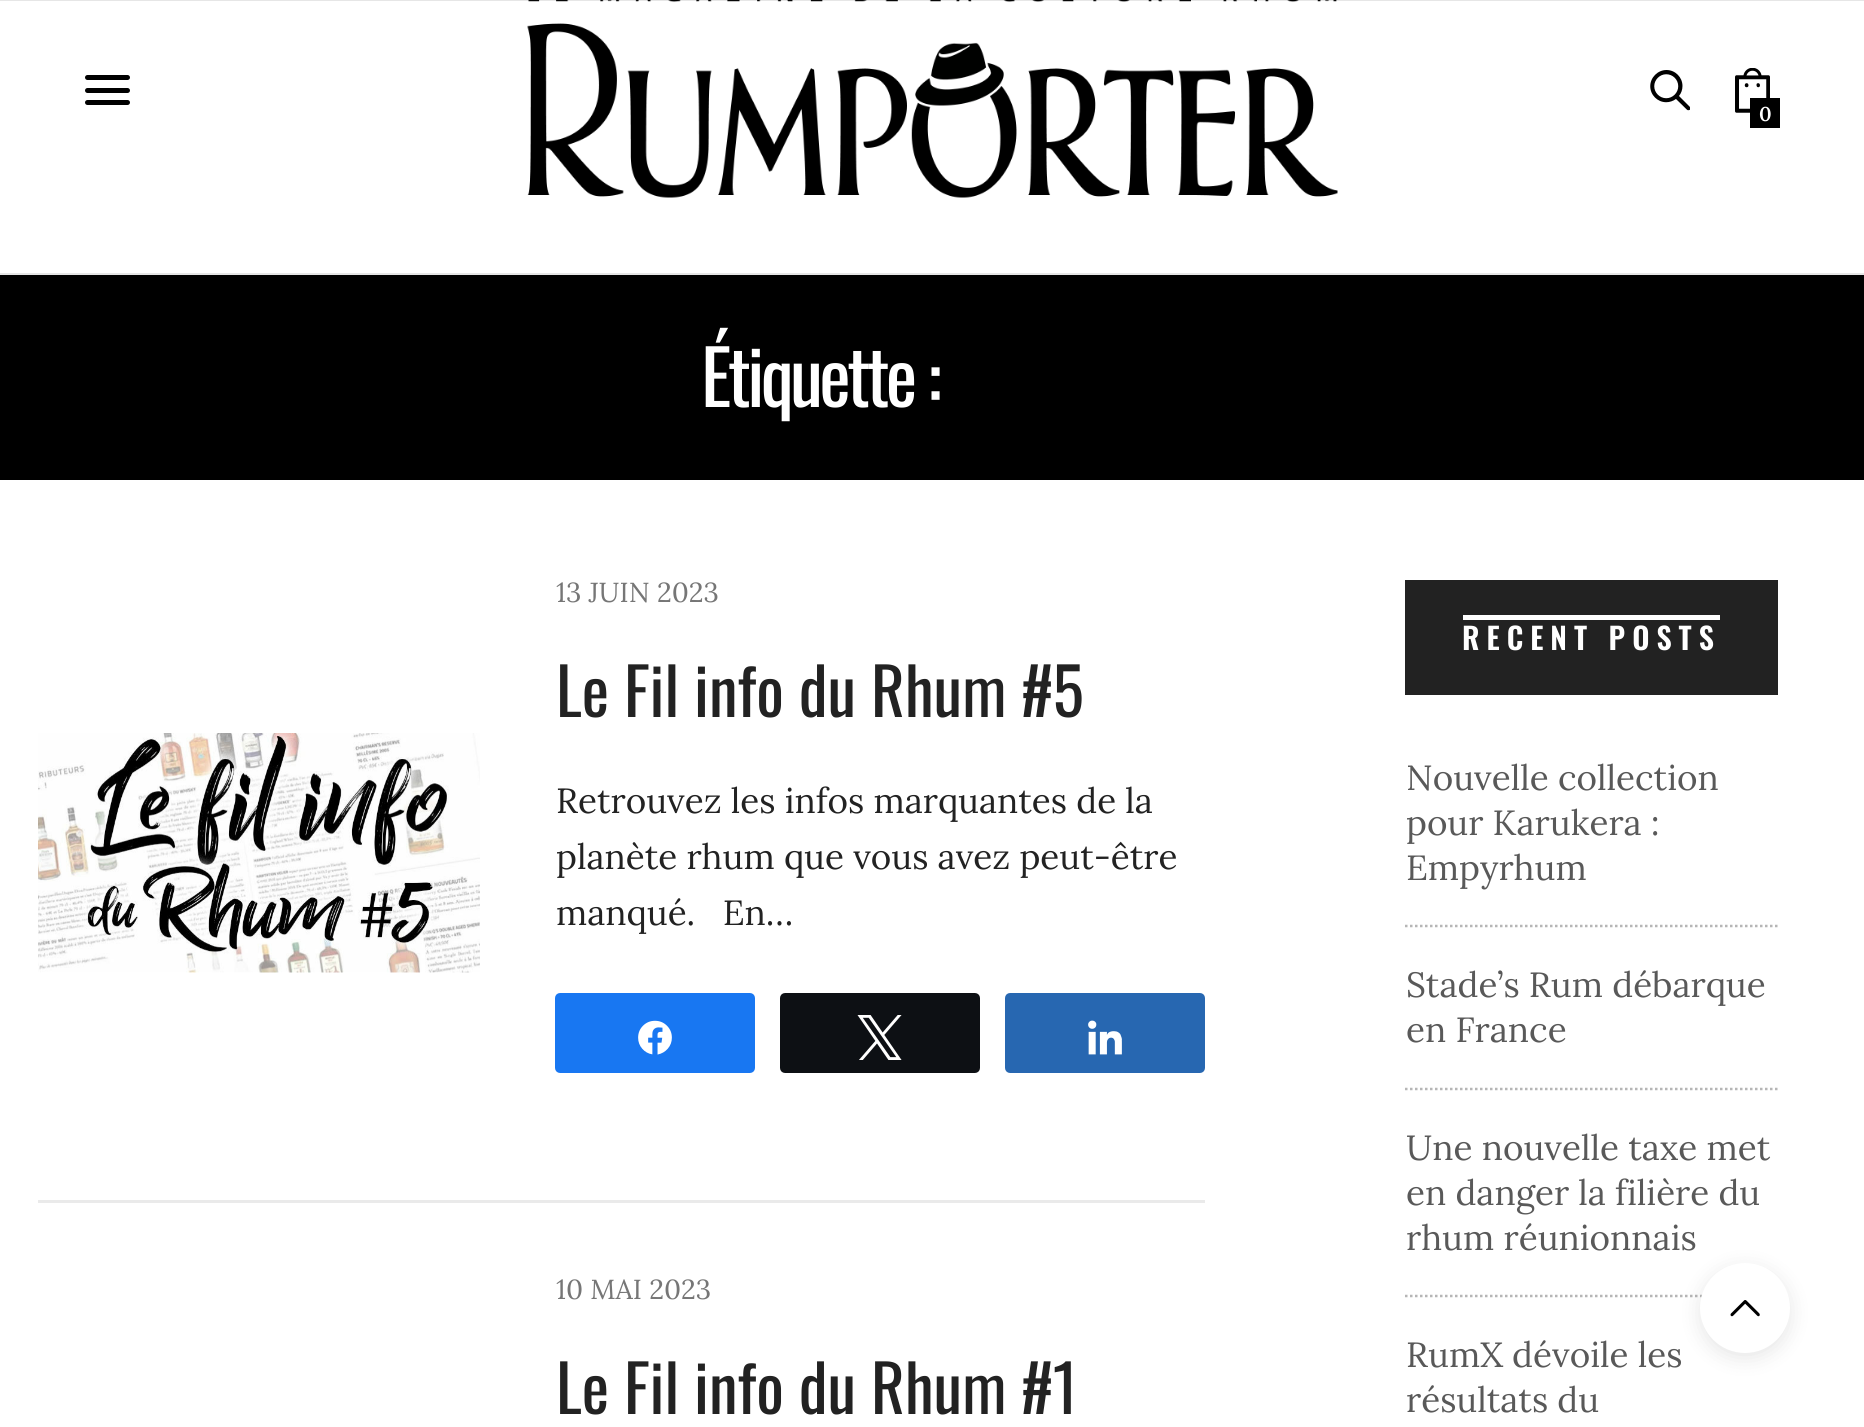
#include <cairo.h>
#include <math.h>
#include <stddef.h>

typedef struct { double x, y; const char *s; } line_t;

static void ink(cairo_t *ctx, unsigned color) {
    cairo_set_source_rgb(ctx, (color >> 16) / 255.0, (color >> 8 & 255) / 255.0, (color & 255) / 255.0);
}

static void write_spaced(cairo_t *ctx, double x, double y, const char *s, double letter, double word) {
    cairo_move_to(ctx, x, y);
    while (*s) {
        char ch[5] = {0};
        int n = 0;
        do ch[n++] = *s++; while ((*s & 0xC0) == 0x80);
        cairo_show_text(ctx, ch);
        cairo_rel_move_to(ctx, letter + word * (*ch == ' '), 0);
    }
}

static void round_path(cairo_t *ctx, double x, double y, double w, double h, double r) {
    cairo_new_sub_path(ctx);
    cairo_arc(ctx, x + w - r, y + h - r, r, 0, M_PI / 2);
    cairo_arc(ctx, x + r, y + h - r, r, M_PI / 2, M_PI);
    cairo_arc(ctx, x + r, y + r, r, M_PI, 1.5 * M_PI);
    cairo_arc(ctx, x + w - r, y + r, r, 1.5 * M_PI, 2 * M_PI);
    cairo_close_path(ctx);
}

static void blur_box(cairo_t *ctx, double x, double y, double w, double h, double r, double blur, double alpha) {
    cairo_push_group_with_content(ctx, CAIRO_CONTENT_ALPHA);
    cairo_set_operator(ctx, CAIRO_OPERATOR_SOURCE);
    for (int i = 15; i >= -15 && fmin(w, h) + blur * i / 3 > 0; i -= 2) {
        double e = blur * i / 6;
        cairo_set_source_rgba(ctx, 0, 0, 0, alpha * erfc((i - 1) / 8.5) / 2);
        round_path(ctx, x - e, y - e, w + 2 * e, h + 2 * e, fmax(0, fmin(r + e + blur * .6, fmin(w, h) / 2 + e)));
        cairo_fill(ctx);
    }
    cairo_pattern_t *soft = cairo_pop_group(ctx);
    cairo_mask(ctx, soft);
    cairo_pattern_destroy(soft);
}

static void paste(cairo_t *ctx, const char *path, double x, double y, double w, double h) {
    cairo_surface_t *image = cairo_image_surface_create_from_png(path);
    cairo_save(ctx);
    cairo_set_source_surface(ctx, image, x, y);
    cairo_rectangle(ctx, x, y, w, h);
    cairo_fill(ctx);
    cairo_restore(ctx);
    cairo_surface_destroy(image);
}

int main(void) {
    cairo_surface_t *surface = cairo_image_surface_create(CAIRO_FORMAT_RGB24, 1864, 1427);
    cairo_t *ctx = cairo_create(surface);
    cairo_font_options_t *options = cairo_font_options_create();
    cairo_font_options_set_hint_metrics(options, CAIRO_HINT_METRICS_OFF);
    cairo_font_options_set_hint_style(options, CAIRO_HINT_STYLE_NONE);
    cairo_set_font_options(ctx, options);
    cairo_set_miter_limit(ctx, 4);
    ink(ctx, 0xFFFFFF);
    cairo_paint(ctx);
    paste(ctx, "media/1.png", 527, 0, 811, 198);
    cairo_set_source_rgba(ctx, 0, 0, 0, 0.1);
    cairo_rectangle(ctx, 0, 0, 1864, 1);
    cairo_fill(ctx);
    ink(ctx, 0xE6E6E6);
    cairo_rectangle(ctx, 0, 273, 1864, 2);
    cairo_fill(ctx);
    ink(ctx, 0x000000);
    round_path(ctx, 85, 75, 45, 5, 2.5);
    cairo_fill(ctx);
    round_path(ctx, 85, 88, 45, 5, 2.5);
    cairo_fill(ctx);
    round_path(ctx, 85, 100, 45, 5, 2.5);
    cairo_fill(ctx);
    paste(ctx, "media/2.png", 1650, 70, 40, 41);
    paste(ctx, "media/3.png", 1735, 68, 35, 45);
    cairo_rectangle(ctx, 1750, 98, 30, 30);
    cairo_fill(ctx);
    cairo_select_font_face(ctx, "Lora SemiBold", CAIRO_FONT_SLANT_NORMAL, CAIRO_FONT_WEIGHT_NORMAL);
    cairo_set_font_size(ctx, 20);
    ink(ctx, 0xFFFFFF);
    cairo_move_to(ctx, 1759, 121);
    cairo_show_text(ctx, "0");
    ink(ctx, 0x000000);
    cairo_rectangle(ctx, 0, 275, 1864, 205);
    cairo_fill(ctx);
    cairo_select_font_face(ctx, "Oswald", CAIRO_FONT_SLANT_NORMAL, CAIRO_FONT_WEIGHT_NORMAL);
    cairo_set_font_size(ctx, 75);
    ink(ctx, 0xFFFFFF);
    write_spaced(ctx, 701, 407, "Étiquette :", -3.75, 0);
    ink(ctx, 0xEAEAEA);
    cairo_rectangle(ctx, 38, 1200, 1167, 3);
    cairo_fill(ctx);
    paste(ctx, "media/4.png", 38, 733, 442, 240);
    cairo_select_font_face(ctx, "Lora", CAIRO_FONT_SLANT_NORMAL, CAIRO_FONT_WEIGHT_NORMAL);
    cairo_set_font_size(ctx, 27.5);
    ink(ctx, 0x767676);
    cairo_move_to(ctx, 556, 602);
    cairo_show_text(ctx, "13 JUIN 2023");
    cairo_select_font_face(ctx, "Oswald", CAIRO_FONT_SLANT_NORMAL, CAIRO_FONT_WEIGHT_NORMAL);
    cairo_set_font_size(ctx, 65);
    ink(ctx, 0x222222);
    cairo_move_to(ctx, 556, 717);
    cairo_show_text(ctx, "Le Fil info du Rhum #5");
    cairo_select_font_face(ctx, "Lora", CAIRO_FONT_SLANT_NORMAL, CAIRO_FONT_WEIGHT_NORMAL);
    cairo_set_font_size(ctx, 35);
    {
        static const line_t items[] = {
            {556, 813, "Retrouvez les infos marquantes de la"},
            {556, 869, "planète rhum que vous avez peut-être"},
            {556, 925, "manqué.   En…"},
        };
        for (size_t i = 0; i < sizeof items / sizeof *items; i++) {
            cairo_move_to(ctx, items[i].x, items[i].y);
            cairo_show_text(ctx, items[i].s);
        }
    }
    ink(ctx, 0x1877F2);
    round_path(ctx, 556.5, 994.5, 197, 77, 3.5);
    cairo_fill_preserve(ctx);
    cairo_set_line_width(ctx, 3);
    cairo_stroke(ctx);
    paste(ctx, "media/5.png", 638, 1020, 34, 35);
    ink(ctx, 0x0D1014);
    round_path(ctx, 781.5, 994.5, 197, 77, 3.5);
    cairo_fill_preserve(ctx);
    cairo_stroke(ctx);
    paste(ctx, "media/6.png", 857, 1015, 45, 45);
    ink(ctx, 0x2767B1);
    round_path(ctx, 1006.5, 994.5, 197, 77, 3.5);
    cairo_fill_preserve(ctx);
    cairo_stroke(ctx);
    paste(ctx, "media/7.png", 1088, 1020, 34, 35);
    cairo_set_font_size(ctx, 27.5);
    ink(ctx, 0x767676);
    cairo_move_to(ctx, 556, 1299);
    cairo_show_text(ctx, "10 MAI 2023");
    cairo_select_font_face(ctx, "Oswald", CAIRO_FONT_SLANT_NORMAL, CAIRO_FONT_WEIGHT_NORMAL);
    cairo_set_font_size(ctx, 65);
    ink(ctx, 0x222222);
    cairo_move_to(ctx, 556, 1414);
    cairo_show_text(ctx, "Le Fil info du Rhum #1");
    cairo_rectangle(ctx, 1405, 580, 373, 115);
    cairo_fill(ctx);
    cairo_select_font_face(ctx, "Oswald SemiBold", CAIRO_FONT_SLANT_NORMAL, CAIRO_FONT_WEIGHT_NORMAL);
    cairo_set_font_size(ctx, 30);
    ink(ctx, 0xFFFFFF);
    write_spaced(ctx, 1462, 650, "RECENT POSTS", 7, 0);
    cairo_rectangle(ctx, 1463, 615, 257, 5);
    cairo_fill(ctx);
    cairo_new_path(ctx);
    cairo_move_to(ctx, 1405, 926);
    cairo_line_to(ctx, 1777.5, 926);
    ink(ctx, 0xB6B6B6);
    cairo_set_line_width(ctx, 2.5);
    cairo_set_dash(ctx, (double[]){2.5, 2.5}, 2, 0);
    cairo_stroke(ctx);
    cairo_select_font_face(ctx, "Lora", CAIRO_FONT_SLANT_NORMAL, CAIRO_FONT_WEIGHT_NORMAL);
    cairo_set_font_size(ctx, 35);
    ink(ctx, 0x595959);
    {
        static const line_t items[] = {
            {1406, 790, "Nouvelle collection"},
            {1406, 835, "pour Karukera :"},
            {1406, 880, "Empyrhum"},
        };
        for (size_t i = 0; i < sizeof items / sizeof *items; i++) {
            cairo_move_to(ctx, items[i].x, items[i].y);
            cairo_show_text(ctx, items[i].s);
        }
    }
    cairo_new_path(ctx);
    cairo_move_to(ctx, 1405, 1089);
    cairo_line_to(ctx, 1777.5, 1089);
    ink(ctx, 0xB6B6B6);
    cairo_stroke(ctx);
    ink(ctx, 0x595959);
    cairo_move_to(ctx, 1406, 997);
    cairo_show_text(ctx, "Stade’s Rum débarque");
    cairo_move_to(ctx, 1406, 1042);
    cairo_show_text(ctx, "en France");
    cairo_new_path(ctx);
    cairo_move_to(ctx, 1405, 1296);
    cairo_line_to(ctx, 1777.5, 1296);
    ink(ctx, 0xB6B6B6);
    cairo_stroke(ctx);
    ink(ctx, 0x595959);
    {
        static const line_t items[] = {
            {1406, 1160, "Une nouvelle taxe met"},
            {1406, 1205, "en danger la filière du"},
            {1406, 1250, "rhum réunionnais"},
            {1406, 1367, "RumX dévoile les"},
            {1406, 1412, "résultats du"},
        };
        for (size_t i = 0; i < sizeof items / sizeof *items; i++) {
            cairo_move_to(ctx, items[i].x, items[i].y);
            cairo_show_text(ctx, items[i].s);
        }
    }
    ink(ctx, 0x000000);
    blur_box(ctx, 1700, 1268, 90, 90, 45, 10, 0.1);
    ink(ctx, 0xFFFFFF);
    cairo_arc(ctx, 1745, 1308, 45, 0, 2 * M_PI);
    cairo_fill(ctx);
    paste(ctx, "media/8.png", 1730, 1300, 30, 17);
    cairo_surface_write_to_png(surface, "image.png");
    cairo_font_options_destroy(options);
    cairo_destroy(ctx);
    cairo_surface_destroy(surface);
    return 0;
}
